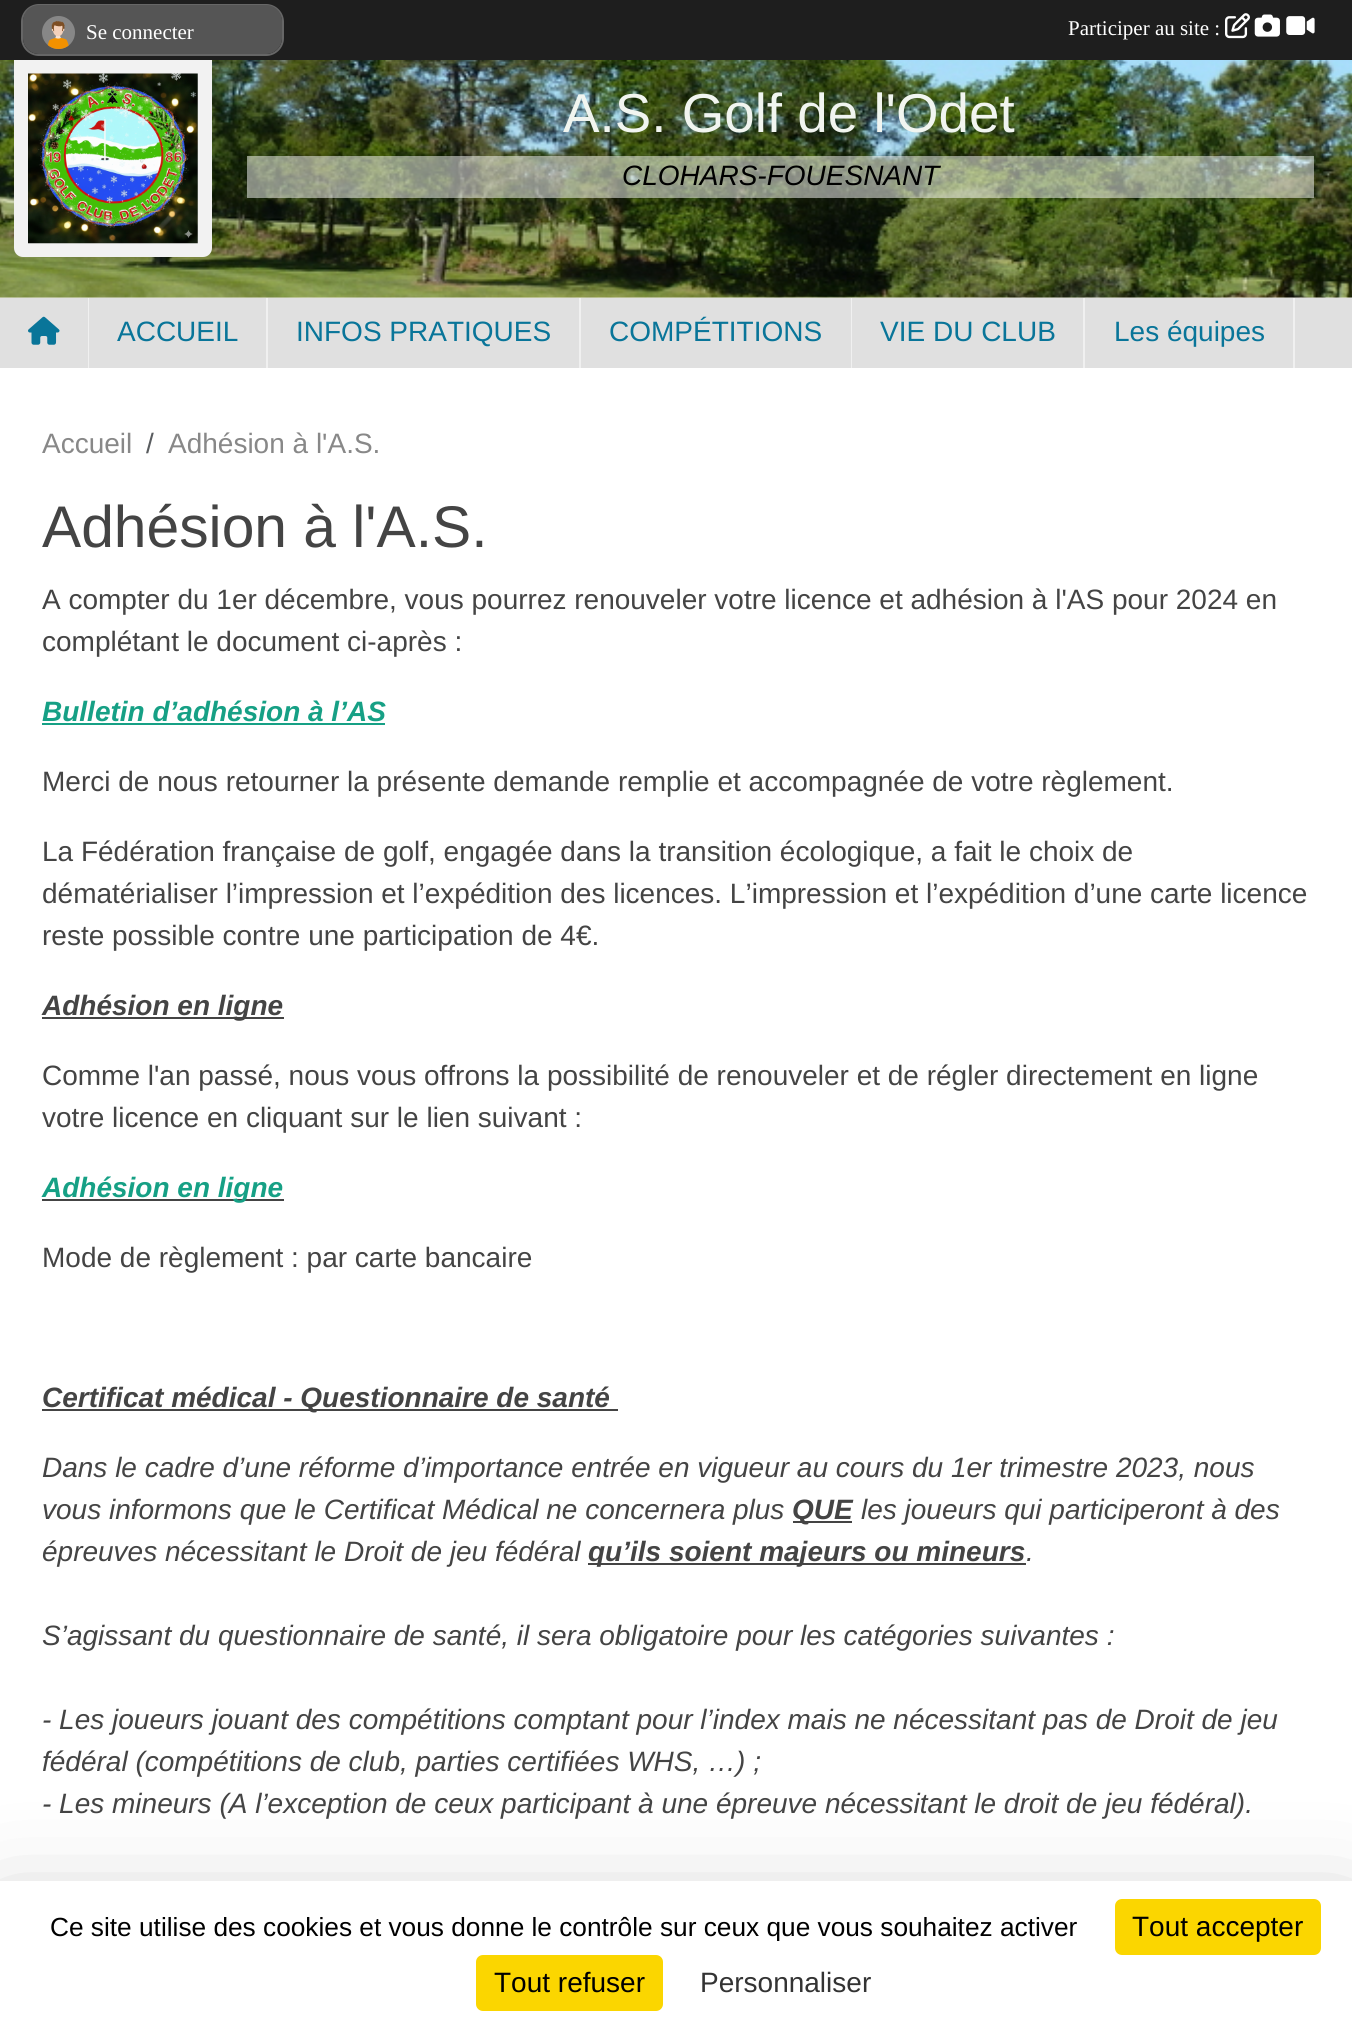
#include <cairo.h>
#include <math.h>
#include <stddef.h>

typedef struct { double x, y; const char *s; } line_t;

static void ink(cairo_t *ctx, unsigned color) {
    cairo_set_source_rgb(ctx, (color >> 16) / 255.0, (color >> 8 & 255) / 255.0, (color & 255) / 255.0);
}

static void round_path(cairo_t *ctx, double x, double y, double w, double h, double r) {
    cairo_new_sub_path(ctx);
    cairo_arc(ctx, x + w - r, y + h - r, r, 0, M_PI / 2);
    cairo_arc(ctx, x + r, y + h - r, r, M_PI / 2, M_PI);
    cairo_arc(ctx, x + r, y + r, r, M_PI, 1.5 * M_PI);
    cairo_arc(ctx, x + w - r, y + r, r, 1.5 * M_PI, 2 * M_PI);
    cairo_close_path(ctx);
}

static void blur_box(cairo_t *ctx, double x, double y, double w, double h, double r, double blur, double alpha) {
    cairo_push_group_with_content(ctx, CAIRO_CONTENT_ALPHA);
    cairo_set_operator(ctx, CAIRO_OPERATOR_SOURCE);
    for (int i = 15; i >= -15 && fmin(w, h) + blur * i / 3 > 0; i -= 2) {
        double e = blur * i / 6;
        cairo_set_source_rgba(ctx, 0, 0, 0, alpha * erfc((i - 1) / 8.5) / 2);
        round_path(ctx, x - e, y - e, w + 2 * e, h + 2 * e, fmax(0, fmin(r + e + blur * .6, fmin(w, h) / 2 + e)));
        cairo_fill(ctx);
    }
    cairo_pattern_t *soft = cairo_pop_group(ctx);
    cairo_mask(ctx, soft);
    cairo_pattern_destroy(soft);
}

static void paste(cairo_t *ctx, const char *path, double x, double y, double w, double h) {
    cairo_surface_t *image = cairo_image_surface_create_from_png(path);
    cairo_save(ctx);
    cairo_set_source_surface(ctx, image, x, y);
    cairo_rectangle(ctx, x, y, w, h);
    cairo_fill(ctx);
    cairo_restore(ctx);
    cairo_surface_destroy(image);
}

int main(void) {
    cairo_surface_t *surface = cairo_image_surface_create(CAIRO_FORMAT_RGB24, 1352, 2028);
    cairo_t *ctx = cairo_create(surface);
    cairo_font_options_t *options = cairo_font_options_create();
    cairo_font_options_set_hint_metrics(options, CAIRO_HINT_METRICS_OFF);
    cairo_font_options_set_hint_style(options, CAIRO_HINT_STYLE_NONE);
    cairo_set_font_options(ctx, options);
    cairo_set_miter_limit(ctx, 4);
    ink(ctx, 0xE0E0E0);
    cairo_paint(ctx);
    ink(ctx, 0x1E1E1E);
    cairo_rectangle(ctx, 0, 0, 1352, 60);
    cairo_fill(ctx);
    round_path(ctx, 22, 5, 261, 50, 17);
    ink(ctx, 0x666666);
    cairo_stroke(ctx);
    ink(ctx, 0x555555);
    round_path(ctx, 23, 5, 259, 49, 16);
    cairo_fill(ctx);
    paste(ctx, "media/1.png", 42, 16, 33, 33);
    cairo_select_font_face(ctx, "Liberation Serif", CAIRO_FONT_SLANT_NORMAL, CAIRO_FONT_WEIGHT_NORMAL);
    cairo_set_font_size(ctx, 21);
    ink(ctx, 0xFFFFFF);
    cairo_move_to(ctx, 86, 39);
    cairo_show_text(ctx, "Se connecter");
    cairo_move_to(ctx, 1068, 35);
    cairo_show_text(ctx, "Participer au site :");
    paste(ctx, "media/2.png", 1225, 13, 25, 26);
    paste(ctx, "media/3.png", 1254, 14, 26, 23);
    paste(ctx, "media/4.png", 1286, 16, 29, 19);
    ink(ctx, 0xE8E7DD);
    cairo_rectangle(ctx, 0, 297, 1352, 1);
    cairo_fill(ctx);
    paste(ctx, "media/6.png", 0, 60, 1352, 238);
    ink(ctx, 0xF2F2F2);
    cairo_new_path(ctx);
    cairo_move_to(ctx, 14, 60);
    cairo_line_to(ctx, 212, 60);
    cairo_line_to(ctx, 212, 248);
    cairo_curve_to(ctx, 212, 253, 208, 257, 203, 257);
    cairo_line_to(ctx, 23, 257);
    cairo_curve_to(ctx, 18, 257, 14, 253, 14, 248);
    cairo_close_path(ctx);
    cairo_fill(ctx);
    paste(ctx, "media/5.png", 28, 73, 170, 171);
    cairo_select_font_face(ctx, "Liberation Sans", CAIRO_FONT_SLANT_NORMAL, CAIRO_FONT_WEIGHT_NORMAL);
    cairo_set_font_size(ctx, 54.75);
    ink(ctx, 0xF1F5F0);
    cairo_move_to(ctx, 563, 132);
    cairo_show_text(ctx, "A.S. Golf de l'Odet");
    cairo_set_source_rgba(ctx, 1, 1, 1, 0.5);
    cairo_rectangle(ctx, 247, 156, 1067, 42);
    cairo_fill(ctx);
    cairo_select_font_face(ctx, "Liberation Sans", CAIRO_FONT_SLANT_ITALIC, CAIRO_FONT_WEIGHT_NORMAL);
    cairo_set_font_size(ctx, 28);
    ink(ctx, 0x000000);
    cairo_move_to(ctx, 622, 185);
    cairo_show_text(ctx, "CLOHARS-FOUESNANT");
    ink(ctx, 0xF0F0F0);
    cairo_rectangle(ctx, 88, 298, 1, 70);
    cairo_fill(ctx);
    paste(ctx, "media/7.png", 28, 316, 32, 29);
    cairo_rectangle(ctx, 266, 298, 2, 70);
    cairo_fill(ctx);
    cairo_select_font_face(ctx, "Liberation Sans", CAIRO_FONT_SLANT_NORMAL, CAIRO_FONT_WEIGHT_NORMAL);
    ink(ctx, 0x097599);
    cairo_move_to(ctx, 117, 341);
    cairo_show_text(ctx, "ACCUEIL");
    ink(ctx, 0xF0F0F0);
    cairo_rectangle(ctx, 579, 298, 2, 70);
    cairo_fill(ctx);
    ink(ctx, 0x097599);
    cairo_move_to(ctx, 296, 341);
    cairo_show_text(ctx, "INFOS PRATIQUES");
    ink(ctx, 0xF0F0F0);
    cairo_rectangle(ctx, 851, 298, 1, 70);
    cairo_fill(ctx);
    ink(ctx, 0x097599);
    cairo_move_to(ctx, 609, 341);
    cairo_show_text(ctx, "COMPÉTITIONS");
    ink(ctx, 0xF0F0F0);
    cairo_rectangle(ctx, 1083, 298, 2, 70);
    cairo_fill(ctx);
    ink(ctx, 0x097599);
    cairo_move_to(ctx, 880, 341);
    cairo_show_text(ctx, "VIE DU CLUB");
    ink(ctx, 0xF0F0F0);
    cairo_rectangle(ctx, 1293, 298, 2, 70);
    cairo_fill(ctx);
    ink(ctx, 0x097599);
    cairo_move_to(ctx, 1114, 341);
    cairo_show_text(ctx, "Les équipes");
    ink(ctx, 0xFFFFFF);
    cairo_rectangle(ctx, 0, 368, 1352, 1513);
    cairo_fill(ctx);
    ink(ctx, 0x888888);
    cairo_move_to(ctx, 42, 453);
    cairo_show_text(ctx, "Accueil");
    ink(ctx, 0x595C5F);
    cairo_move_to(ctx, 146, 453);
    cairo_show_text(ctx, "/");
    ink(ctx, 0x888888);
    cairo_move_to(ctx, 168, 453);
    cairo_show_text(ctx, "Adhésion à l'A.S.");
    cairo_set_font_size(ctx, 58.75);
    ink(ctx, 0x444444);
    cairo_move_to(ctx, 42, 547);
    cairo_show_text(ctx, "Adhésion à l'A.S.");
    cairo_set_font_size(ctx, 28);
    cairo_move_to(ctx, 42, 609);
    cairo_show_text(ctx, "A compter du 1er décembre, vous pourrez renouveler votre licence et adhésion à l'AS pour 2024 en");
    cairo_move_to(ctx, 42, 651);
    cairo_show_text(ctx, "complétant le document ci-après :");
    cairo_select_font_face(ctx, "Liberation Sans", CAIRO_FONT_SLANT_ITALIC, CAIRO_FONT_WEIGHT_BOLD);
    ink(ctx, 0x16A085);
    cairo_move_to(ctx, 42, 721);
    cairo_show_text(ctx, "Bulletin d’adhésion à l’AS");
    cairo_rectangle(ctx, 42, 723, 343, 2);
    cairo_fill(ctx);
    cairo_select_font_face(ctx, "Liberation Sans", CAIRO_FONT_SLANT_NORMAL, CAIRO_FONT_WEIGHT_NORMAL);
    ink(ctx, 0x444444);
    {
        static const line_t items[] = {
            {42, 791, "Merci de nous retourner la présente demande remplie et accompagnée de votre règlement."},
            {42, 861, "La Fédération française de golf, engagée dans la transition écologique, a fait le choix de"},
            {42, 903, "dématérialiser l’impression et l’expédition des licences. L’impression et l’expédition d’une carte licence"},
            {42, 945, "reste possible contre une participation de 4€."},
        };
        for (size_t i = 0; i < sizeof items / sizeof *items; i++) {
            cairo_move_to(ctx, items[i].x, items[i].y);
            cairo_show_text(ctx, items[i].s);
        }
    }
    cairo_rectangle(ctx, 42, 1017, 242, 2);
    cairo_fill(ctx);
    cairo_select_font_face(ctx, "Liberation Sans", CAIRO_FONT_SLANT_ITALIC, CAIRO_FONT_WEIGHT_BOLD);
    cairo_move_to(ctx, 42, 1015);
    cairo_show_text(ctx, "Adhésion en ligne");
    cairo_select_font_face(ctx, "Liberation Sans", CAIRO_FONT_SLANT_NORMAL, CAIRO_FONT_WEIGHT_NORMAL);
    cairo_move_to(ctx, 42, 1085);
    cairo_show_text(ctx, "Comme l'an passé, nous vous offrons la possibilité de renouveler et de régler directement en ligne");
    cairo_move_to(ctx, 42, 1127);
    cairo_show_text(ctx, "votre licence en cliquant sur le lien suivant :");
    cairo_rectangle(ctx, 42, 1199, 242, 2);
    cairo_fill(ctx);
    cairo_select_font_face(ctx, "Liberation Sans", CAIRO_FONT_SLANT_ITALIC, CAIRO_FONT_WEIGHT_BOLD);
    ink(ctx, 0x16A085);
    cairo_move_to(ctx, 42, 1197);
    cairo_show_text(ctx, "Adhésion en ligne");
    cairo_select_font_face(ctx, "Liberation Sans", CAIRO_FONT_SLANT_NORMAL, CAIRO_FONT_WEIGHT_NORMAL);
    ink(ctx, 0x444444);
    cairo_move_to(ctx, 42, 1267);
    cairo_show_text(ctx, "Mode de règlement : par carte bancaire");
    cairo_rectangle(ctx, 42, 1409, 576, 2);
    cairo_fill(ctx);
    cairo_select_font_face(ctx, "Liberation Sans", CAIRO_FONT_SLANT_ITALIC, CAIRO_FONT_WEIGHT_BOLD);
    cairo_move_to(ctx, 42, 1407);
    cairo_show_text(ctx, "Certificat médical - Questionnaire de santé");
    cairo_select_font_face(ctx, "Liberation Sans", CAIRO_FONT_SLANT_ITALIC, CAIRO_FONT_WEIGHT_NORMAL);
    cairo_move_to(ctx, 42, 1477);
    cairo_show_text(ctx, "Dans le cadre d’une réforme d’importance entrée en vigueur au cours du 1er trimestre 2023, nous");
    cairo_move_to(ctx, 42, 1519);
    cairo_show_text(ctx, "vous informons que le Certificat Médical ne concernera plus");
    cairo_rectangle(ctx, 793, 1521, 59, 2);
    cairo_fill(ctx);
    cairo_select_font_face(ctx, "Liberation Sans", CAIRO_FONT_SLANT_ITALIC, CAIRO_FONT_WEIGHT_BOLD);
    cairo_move_to(ctx, 792, 1519);
    cairo_show_text(ctx, "QUE");
    cairo_select_font_face(ctx, "Liberation Sans", CAIRO_FONT_SLANT_ITALIC, CAIRO_FONT_WEIGHT_NORMAL);
    cairo_move_to(ctx, 861, 1519);
    cairo_show_text(ctx, "les joueurs qui participeront à des");
    cairo_move_to(ctx, 42, 1561);
    cairo_show_text(ctx, "épreuves nécessitant le Droit de jeu fédéral");
    cairo_rectangle(ctx, 588, 1563, 438, 2);
    cairo_fill(ctx);
    cairo_select_font_face(ctx, "Liberation Sans", CAIRO_FONT_SLANT_ITALIC, CAIRO_FONT_WEIGHT_BOLD);
    cairo_move_to(ctx, 588, 1561);
    cairo_show_text(ctx, "qu’ils soient majeurs ou mineurs");
    cairo_select_font_face(ctx, "Liberation Sans", CAIRO_FONT_SLANT_ITALIC, CAIRO_FONT_WEIGHT_NORMAL);
    {
        static const line_t items[] = {
            {1026, 1561, "."},
            {42, 1645, "S’agissant du questionnaire de santé, il sera obligatoire pour les catégories suivantes :"},
            {42, 1729, "- Les joueurs jouant des compétitions comptant pour l’index mais ne nécessitant pas de Droit de jeu"},
            {42, 1771, "fédéral (compétitions de club, parties certifiées WHS, …) ;"},
            {42, 1813, "- Les mineurs (A l’exception de ceux participant à une épreuve nécessitant le droit de jeu fédéral)."},
        };
        for (size_t i = 0; i < sizeof items / sizeof *items; i++) {
            cairo_move_to(ctx, items[i].x, items[i].y);
            cairo_show_text(ctx, items[i].s);
        }
    }
    ink(ctx, 0x000000);
    blur_box(ctx, 0, 1916, 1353, 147, 0, 52.5, 0.25);
    ink(ctx, 0xFFFFFF);
    cairo_rectangle(ctx, 0, 1881, 1352, 147);
    cairo_fill(ctx);
    cairo_save(ctx);
    cairo_rectangle(ctx, 33, 1911, 1063, 30);
    cairo_clip(ctx);
    cairo_select_font_face(ctx, "Liberation Sans", CAIRO_FONT_SLANT_NORMAL, CAIRO_FONT_WEIGHT_NORMAL);
    cairo_set_font_size(ctx, 26.25);
    ink(ctx, 0x000000);
    cairo_move_to(ctx, 50, 1936);
    cairo_show_text(ctx, "Ce site utilise des cookies et vous donne le contrôle sur ceux que vous souhaitez activer");
    cairo_restore(ctx);
    ink(ctx, 0xFBD600);
    round_path(ctx, 1115, 1899, 206, 56, 7);
    cairo_fill(ctx);
    cairo_select_font_face(ctx, "Liberation Sans", CAIRO_FONT_SLANT_NORMAL, CAIRO_FONT_WEIGHT_NORMAL);
    ink(ctx, 0x000000);
    cairo_move_to(ctx, 1132, 1936);
    cairo_show_text(ctx, "Tout accepter");
    ink(ctx, 0xFBD600);
    round_path(ctx, 476, 1955, 187, 56, 7);
    cairo_fill(ctx);
    ink(ctx, 0x000000);
    cairo_move_to(ctx, 494, 1992);
    cairo_show_text(ctx, "Tout refuser");
    ink(ctx, 0x333333);
    cairo_move_to(ctx, 700, 1992);
    cairo_show_text(ctx, "Personnaliser");
    cairo_surface_write_to_png(surface, "image.png");
    cairo_font_options_destroy(options);
    cairo_destroy(ctx);
    cairo_surface_destroy(surface);
    return 0;
}
